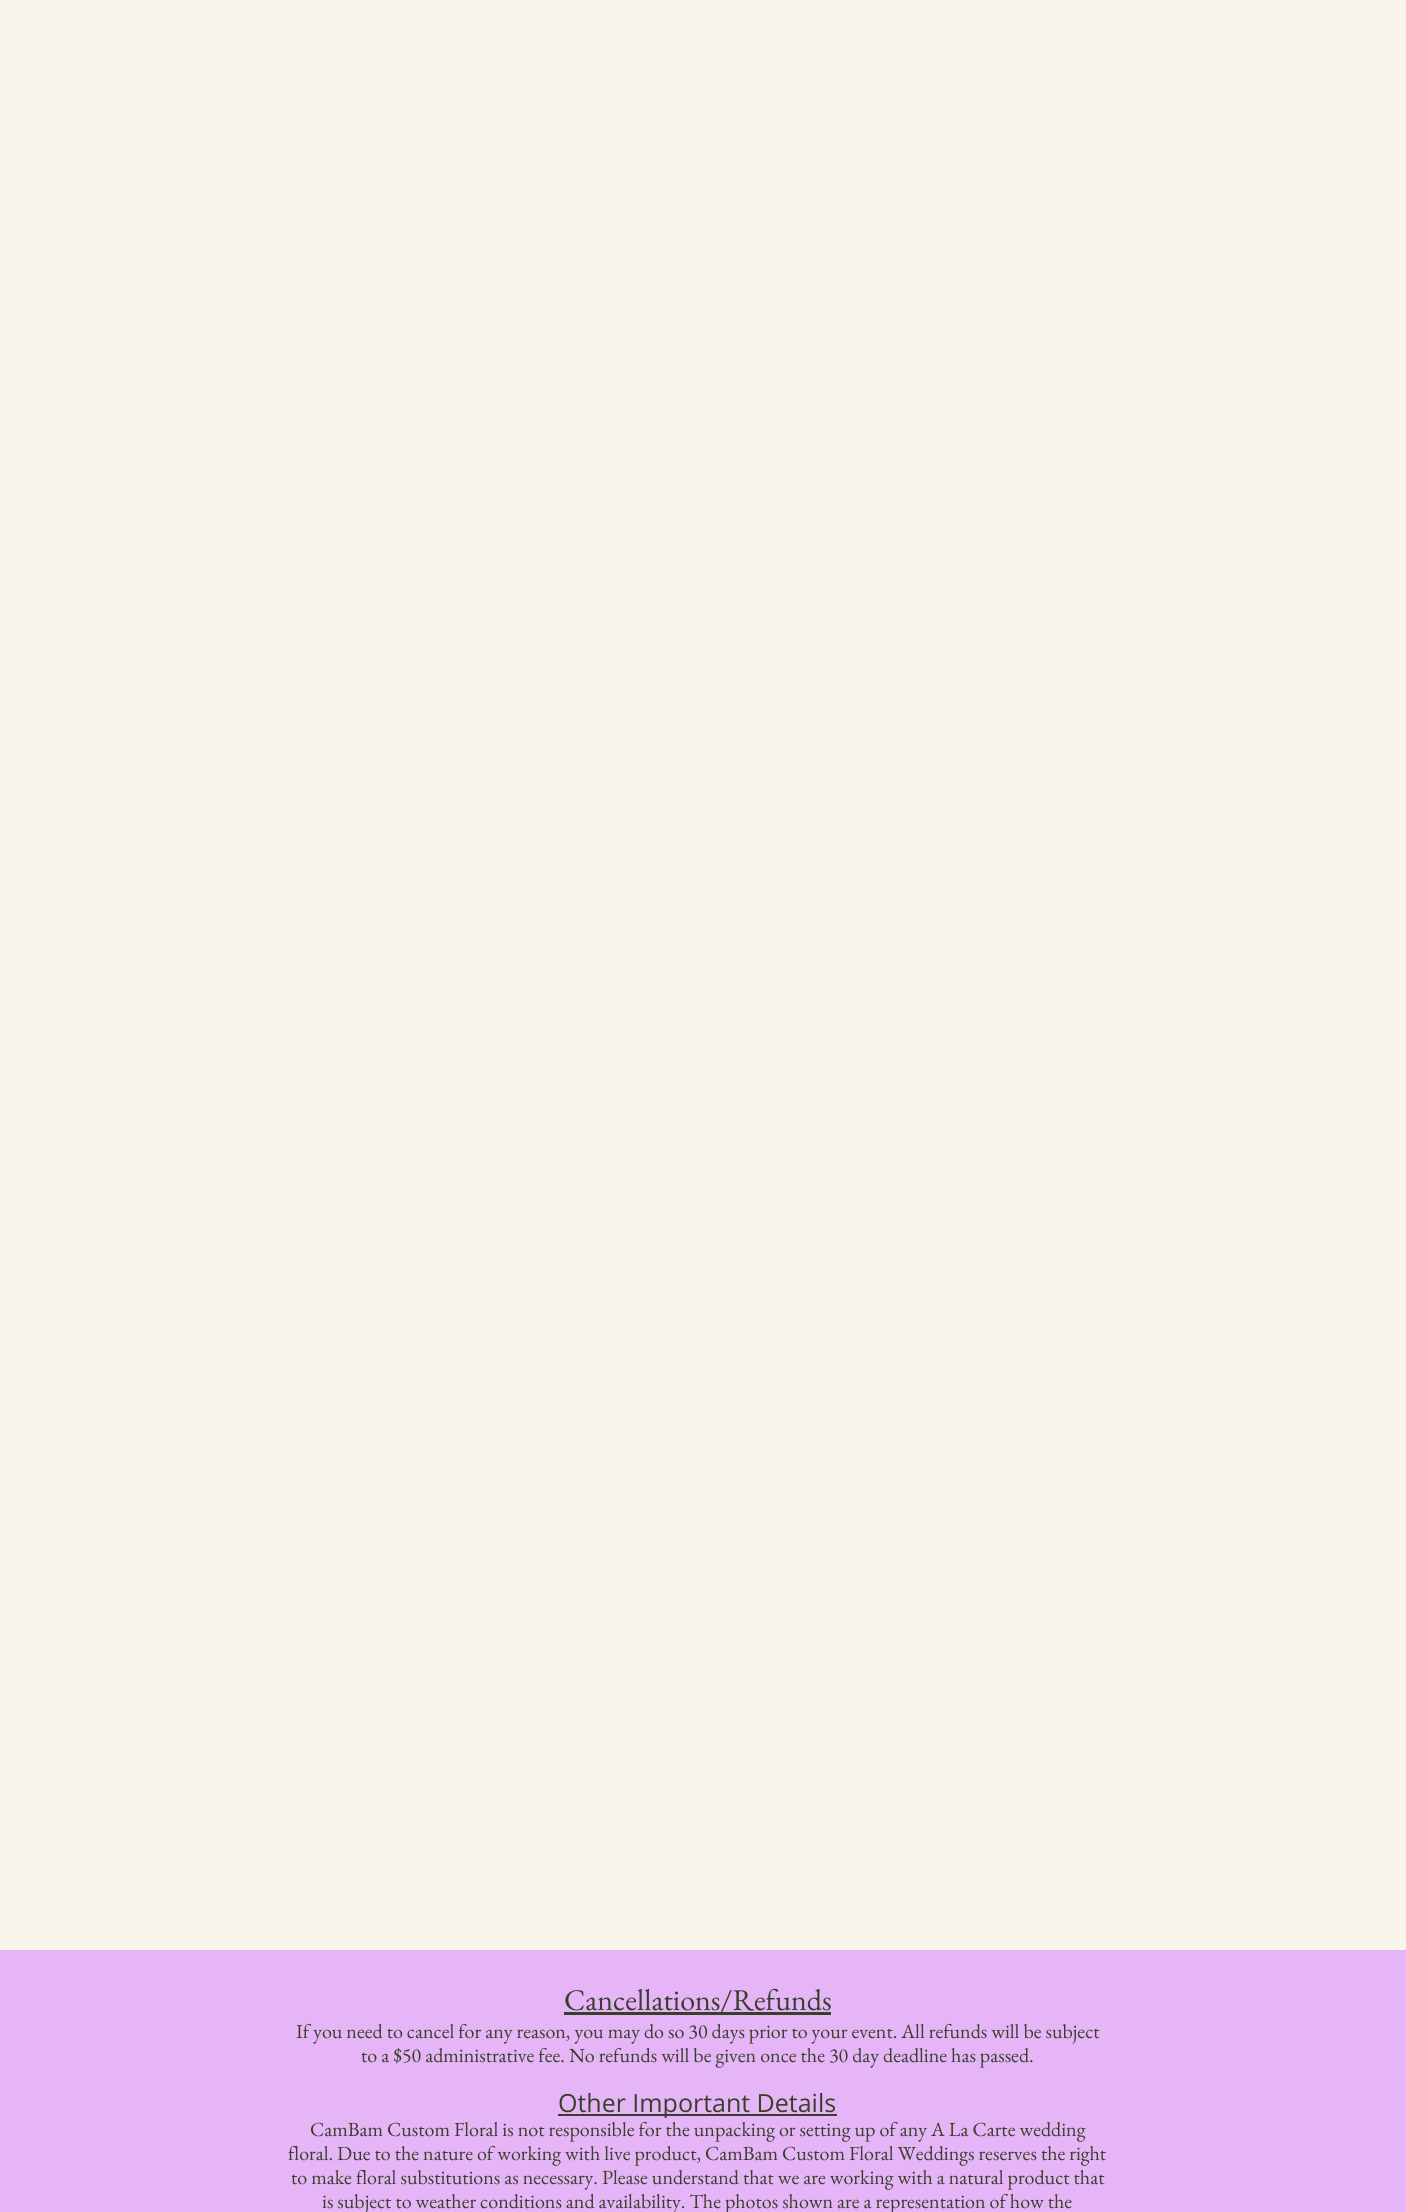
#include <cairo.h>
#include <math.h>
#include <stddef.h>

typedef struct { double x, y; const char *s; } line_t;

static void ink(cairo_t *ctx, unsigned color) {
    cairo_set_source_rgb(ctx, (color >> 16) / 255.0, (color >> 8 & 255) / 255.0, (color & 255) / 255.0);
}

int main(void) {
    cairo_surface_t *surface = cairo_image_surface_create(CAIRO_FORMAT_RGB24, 1406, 2212);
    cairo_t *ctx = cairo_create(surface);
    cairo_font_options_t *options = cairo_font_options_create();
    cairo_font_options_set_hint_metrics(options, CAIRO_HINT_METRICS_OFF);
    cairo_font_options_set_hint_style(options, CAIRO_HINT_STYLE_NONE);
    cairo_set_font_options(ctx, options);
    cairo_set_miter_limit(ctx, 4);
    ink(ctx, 0xFAF5EB);
    cairo_paint(ctx);
    ink(ctx, 0xE6B5F7);
    cairo_rectangle(ctx, 0, 1950, 1406, 262);
    cairo_fill(ctx);
    cairo_select_font_face(ctx, "EB Garamond", CAIRO_FONT_SLANT_NORMAL, CAIRO_FONT_WEIGHT_NORMAL);
    cairo_set_font_size(ctx, 30);
    ink(ctx, 0x3A3F2C);
    cairo_move_to(ctx, 564, 2010);
    cairo_show_text(ctx, "Cancellations/Refunds");
    cairo_rectangle(ctx, 564, 2012, 267, 3);
    cairo_fill(ctx);
    cairo_set_font_size(ctx, 20);
    cairo_move_to(ctx, 296, 2038);
    cairo_show_text(ctx, "If you need to cancel for any reason, you may do so 30 days prior to your event. All refunds will be subject");
    cairo_move_to(ctx, 361, 2062);
    cairo_show_text(ctx, "to a $50 administrative fee. No refunds will be given once the 30 day deadline has passed.");
    cairo_rectangle(ctx, 558, 2114, 279, 2);
    cairo_fill(ctx);
    cairo_select_font_face(ctx, "Open Sans", CAIRO_FONT_SLANT_NORMAL, CAIRO_FONT_WEIGHT_NORMAL);
    cairo_set_font_size(ctx, 25);
    cairo_move_to(ctx, 558, 2112);
    cairo_show_text(ctx, "Other Important Details");
    cairo_select_font_face(ctx, "EB Garamond", CAIRO_FONT_SLANT_NORMAL, CAIRO_FONT_WEIGHT_NORMAL);
    cairo_set_font_size(ctx, 20);
    {
        static const line_t items[] = {
            {310, 2136, "CamBam Custom Floral is not responsible for the unpacking or setting up of any A La Carte wedding"},
            {288, 2160, "floral. Due to the nature of working with live product, CamBam Custom Floral Weddings reserves the right"},
            {291, 2184, "to make floral substitutions as necessary. Please understand that we are working with a natural product that"},
            {322, 2208, "is subject to weather conditions and availability. The photos shown are a representation of how the"},
        };
        for (size_t i = 0; i < sizeof items / sizeof *items; i++) {
            cairo_move_to(ctx, items[i].x, items[i].y);
            cairo_show_text(ctx, items[i].s);
        }
    }
    cairo_surface_write_to_png(surface, "image.png");
    cairo_font_options_destroy(options);
    cairo_destroy(ctx);
    cairo_surface_destroy(surface);
    return 0;
}
